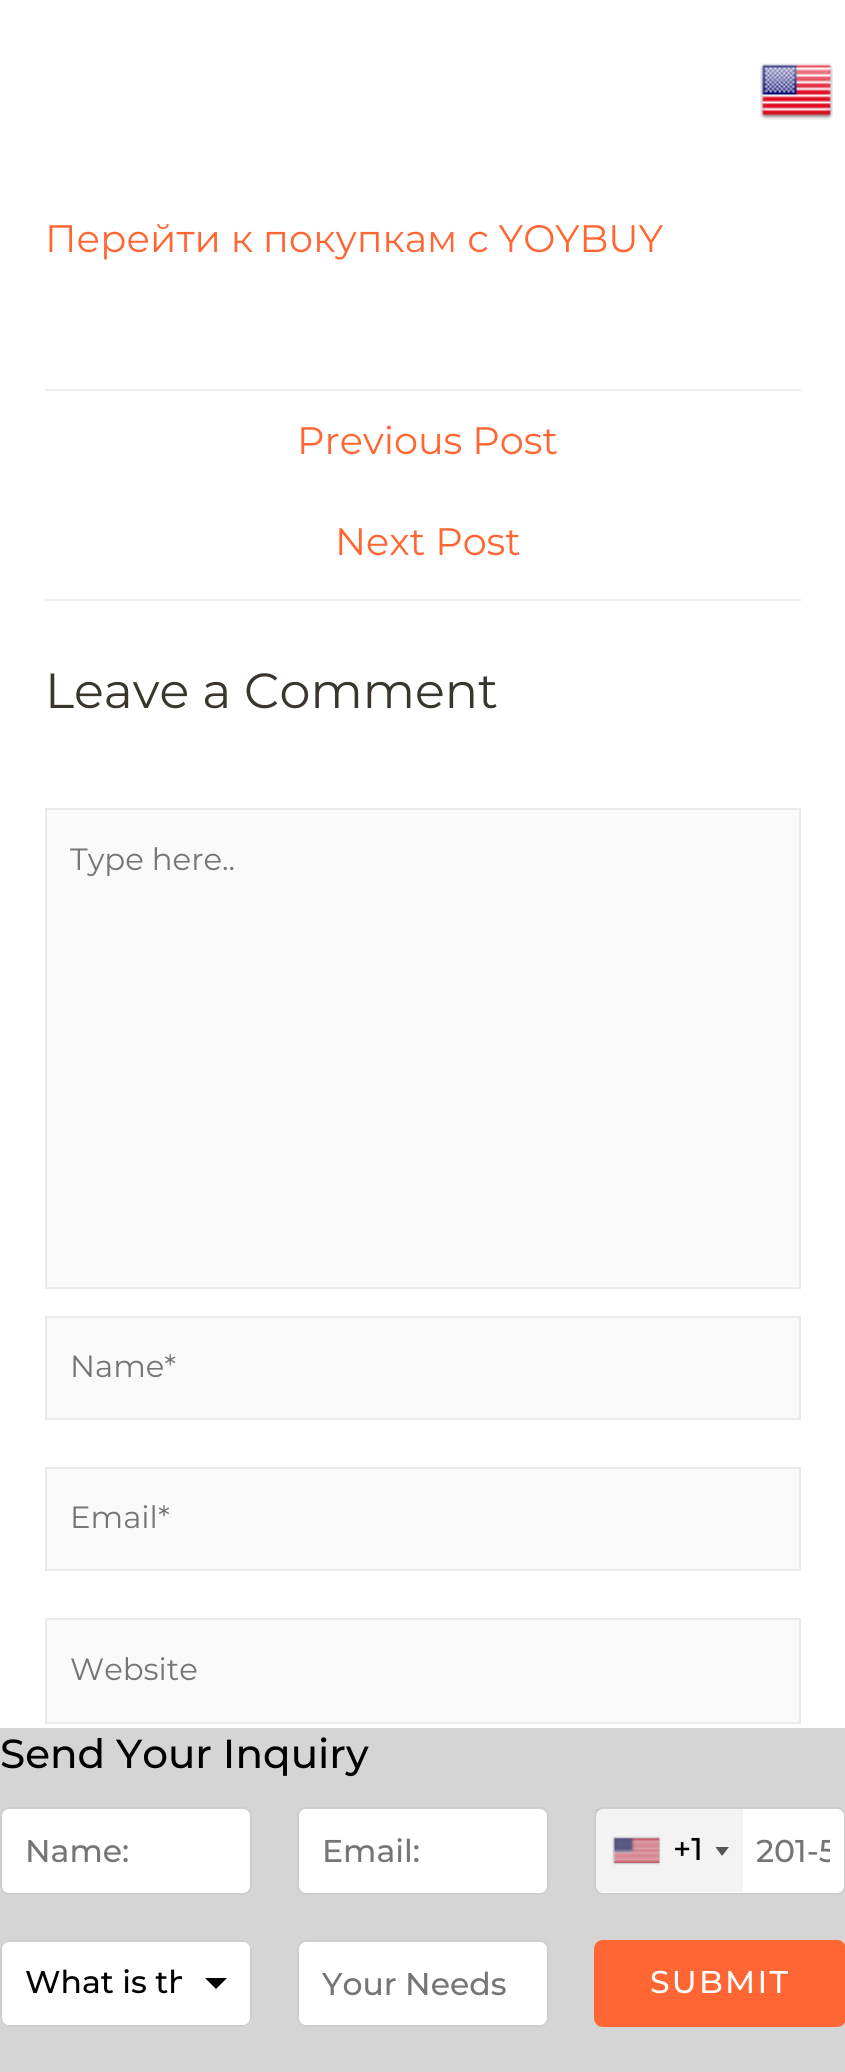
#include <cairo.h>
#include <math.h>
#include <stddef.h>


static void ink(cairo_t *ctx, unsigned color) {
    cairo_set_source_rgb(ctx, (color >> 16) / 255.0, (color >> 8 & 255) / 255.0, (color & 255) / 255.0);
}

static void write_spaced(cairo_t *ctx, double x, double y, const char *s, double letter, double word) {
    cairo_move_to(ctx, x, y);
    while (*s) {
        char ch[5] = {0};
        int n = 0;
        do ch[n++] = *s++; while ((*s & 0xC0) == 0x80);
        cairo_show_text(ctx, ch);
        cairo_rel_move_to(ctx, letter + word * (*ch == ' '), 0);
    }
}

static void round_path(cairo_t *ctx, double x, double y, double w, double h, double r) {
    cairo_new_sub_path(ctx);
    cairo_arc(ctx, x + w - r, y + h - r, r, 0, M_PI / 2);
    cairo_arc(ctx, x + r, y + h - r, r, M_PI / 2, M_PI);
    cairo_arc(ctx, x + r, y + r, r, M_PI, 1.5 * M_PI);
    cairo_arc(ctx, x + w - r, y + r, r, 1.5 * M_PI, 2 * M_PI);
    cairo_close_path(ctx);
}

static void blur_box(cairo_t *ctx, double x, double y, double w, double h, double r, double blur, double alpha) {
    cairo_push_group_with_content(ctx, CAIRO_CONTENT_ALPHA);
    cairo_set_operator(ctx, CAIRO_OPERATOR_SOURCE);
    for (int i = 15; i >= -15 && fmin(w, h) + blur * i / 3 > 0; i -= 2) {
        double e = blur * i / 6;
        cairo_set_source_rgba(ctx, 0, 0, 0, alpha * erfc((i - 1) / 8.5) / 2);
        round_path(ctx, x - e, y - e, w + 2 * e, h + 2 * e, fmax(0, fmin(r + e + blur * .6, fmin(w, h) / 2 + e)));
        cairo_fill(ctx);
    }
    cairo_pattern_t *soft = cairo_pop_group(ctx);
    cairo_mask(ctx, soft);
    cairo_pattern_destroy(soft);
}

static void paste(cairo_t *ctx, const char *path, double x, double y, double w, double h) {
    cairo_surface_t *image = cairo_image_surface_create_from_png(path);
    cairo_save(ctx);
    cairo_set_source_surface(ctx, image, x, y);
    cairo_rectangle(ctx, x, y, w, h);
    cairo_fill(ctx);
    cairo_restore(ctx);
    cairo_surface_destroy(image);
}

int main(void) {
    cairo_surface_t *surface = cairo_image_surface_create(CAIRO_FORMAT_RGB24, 845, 2072);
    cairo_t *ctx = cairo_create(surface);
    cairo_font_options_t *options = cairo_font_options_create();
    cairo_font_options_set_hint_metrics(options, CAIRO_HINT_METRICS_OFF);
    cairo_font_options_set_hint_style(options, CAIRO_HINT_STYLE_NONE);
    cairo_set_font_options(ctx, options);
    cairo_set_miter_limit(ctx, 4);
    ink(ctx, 0xFFFFFF);
    cairo_paint(ctx);
    paste(ctx, "media/1.png", 760, 63, 73, 57);
    cairo_select_font_face(ctx, "Montserrat", CAIRO_FONT_SLANT_NORMAL, CAIRO_FONT_WEIGHT_NORMAL);
    cairo_set_font_size(ctx, 38.25);
    ink(ctx, 0xFF6633);
    cairo_move_to(ctx, 45, 252);
    cairo_show_text(ctx, "Перейти к покупкам с YOYBUY");
    ink(ctx, 0xEEEEEE);
    cairo_rectangle(ctx, 45, 389, 756, 2);
    cairo_fill(ctx);
    ink(ctx, 0xFF6633);
    cairo_move_to(ctx, 297, 454);
    cairo_show_text(ctx, "Previous Post");
    cairo_move_to(ctx, 335, 555);
    cairo_show_text(ctx, "Next Post");
    ink(ctx, 0xEEEEEE);
    cairo_rectangle(ctx, 45, 599, 756, 2);
    cairo_fill(ctx);
    cairo_set_font_size(ctx, 49.25);
    ink(ctx, 0x3A362D);
    cairo_move_to(ctx, 45, 708);
    cairo_show_text(ctx, "Leave a Comment");
    ink(ctx, 0xFAFAFA);
    cairo_rectangle(ctx, 46, 809, 754, 479);
    cairo_fill_preserve(ctx);
    ink(ctx, 0xEAEAEA);
    cairo_stroke(ctx);
    cairo_set_font_size(ctx, 30.75);
    ink(ctx, 0x757575);
    cairo_move_to(ctx, 70, 870);
    cairo_show_text(ctx, "Type here..");
    ink(ctx, 0xFAFAFA);
    cairo_rectangle(ctx, 46, 1317, 754, 102);
    cairo_fill_preserve(ctx);
    ink(ctx, 0xEAEAEA);
    cairo_stroke(ctx);
    ink(ctx, 0x757575);
    cairo_move_to(ctx, 70, 1377);
    cairo_show_text(ctx, "Name*");
    ink(ctx, 0xFAFAFA);
    cairo_rectangle(ctx, 46, 1468, 754, 102);
    cairo_fill_preserve(ctx);
    ink(ctx, 0xEAEAEA);
    cairo_stroke(ctx);
    ink(ctx, 0x757575);
    cairo_move_to(ctx, 70, 1528);
    cairo_show_text(ctx, "Email*");
    ink(ctx, 0xFAFAFA);
    cairo_rectangle(ctx, 46, 1619, 754, 104);
    cairo_fill_preserve(ctx);
    ink(ctx, 0xEAEAEA);
    cairo_stroke(ctx);
    ink(ctx, 0x757575);
    cairo_move_to(ctx, 70, 1680);
    cairo_show_text(ctx, "Website");
    ink(ctx, 0xD5D5D5);
    cairo_rectangle(ctx, 0, 1728, 845, 344);
    cairo_fill(ctx);
    cairo_select_font_face(ctx, "Montserrat Medium", CAIRO_FONT_SLANT_NORMAL, CAIRO_FONT_WEIGHT_NORMAL);
    cairo_set_font_size(ctx, 40.5);
    ink(ctx, 0x000000);
    cairo_move_to(ctx, 0, 1768);
    cairo_show_text(ctx, "Send Your Inquiry");
    ink(ctx, 0xFFFFFF);
    round_path(ctx, 1, 1808, 250, 86, 8);
    cairo_fill_preserve(ctx);
    ink(ctx, 0xCECED2);
    cairo_stroke(ctx);
    cairo_set_font_size(ctx, 31.5);
    ink(ctx, 0x757575);
    cairo_move_to(ctx, 25, 1862);
    cairo_show_text(ctx, "Name:");
    ink(ctx, 0xFFFFFF);
    round_path(ctx, 298, 1808, 250, 86, 8);
    cairo_fill_preserve(ctx);
    ink(ctx, 0xCECED2);
    cairo_stroke(ctx);
    ink(ctx, 0x757575);
    cairo_move_to(ctx, 322, 1862);
    cairo_show_text(ctx, "Email:");
    ink(ctx, 0xFFFFFF);
    round_path(ctx, 595, 1808, 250, 86, 8);
    cairo_fill_preserve(ctx);
    ink(ctx, 0xCECED2);
    cairo_stroke(ctx);
    cairo_set_source_rgba(ctx, 0, 0, 0, 0.05);
    cairo_rectangle(ctx, 596, 1809, 147, 83);
    cairo_fill(ctx);
    ink(ctx, 0x888888);
    blur_box(ctx, 614, 1838, 45, 25, 0, 1, 1);
    ink(ctx, 0xDBDBDB);
    cairo_rectangle(ctx, 614, 1838, 45, 25);
    cairo_fill(ctx);
    paste(ctx, "media/2.png", 613, 1838, 47, 25);
    ink(ctx, 0x000000);
    cairo_move_to(ctx, 673, 1860);
    cairo_show_text(ctx, "+1");
    ink(ctx, 0x555555);
    cairo_new_path(ctx);
    cairo_move_to(ctx, 715.5, 1847);
    cairo_line_to(ctx, 729, 1847);
    cairo_line_to(ctx, 722, 1856);
    cairo_close_path(ctx);
    cairo_fill(ctx);
    cairo_save(ctx);
    cairo_rectangle(ctx, 756, 1832, 74, 40);
    cairo_clip(ctx);
    ink(ctx, 0x757575);
    cairo_move_to(ctx, 756, 1862);
    cairo_show_text(ctx, "201-5");
    cairo_restore(ctx);
    ink(ctx, 0xFFFFFF);
    round_path(ctx, 0, 1940, 252, 87, 9);
    cairo_fill(ctx);
    ink(ctx, 0x000000);
    cairo_set_fill_rule(ctx, CAIRO_FILL_RULE_EVEN_ODD);
    cairo_new_path(ctx);
    cairo_move_to(ctx, 216, 1989);
    cairo_line_to(ctx, 227, 1978);
    cairo_line_to(ctx, 205, 1978);
    cairo_fill(ctx);
    round_path(ctx, 1, 1941, 250, 85, 8);
    ink(ctx, 0xCECED2);
    cairo_stroke(ctx);
    cairo_save(ctx);
    cairo_set_fill_rule(ctx, CAIRO_FILL_RULE_WINDING);
    cairo_rectangle(ctx, 25, 1962, 157, 43);
    cairo_clip(ctx);
    ink(ctx, 0x000000);
    cairo_move_to(ctx, 25, 1993);
    cairo_show_text(ctx, "What is th");
    cairo_restore(ctx);
    ink(ctx, 0xFFFFFF);
    round_path(ctx, 298, 1941, 250, 85, 8);
    cairo_fill_preserve(ctx);
    ink(ctx, 0xCECED2);
    cairo_stroke(ctx);
    ink(ctx, 0x757575);
    cairo_move_to(ctx, 322, 1995);
    cairo_show_text(ctx, "Your Needs");
    ink(ctx, 0xFF6633);
    round_path(ctx, 595, 1941, 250, 85, 8);
    cairo_fill_preserve(ctx);
    cairo_stroke(ctx);
    ink(ctx, 0xFFFFFF);
    write_spaced(ctx, 650, 1993, "SUBMIT", 2.25, 0);
    cairo_surface_write_to_png(surface, "image.png");
    cairo_font_options_destroy(options);
    cairo_destroy(ctx);
    cairo_surface_destroy(surface);
    return 0;
}
